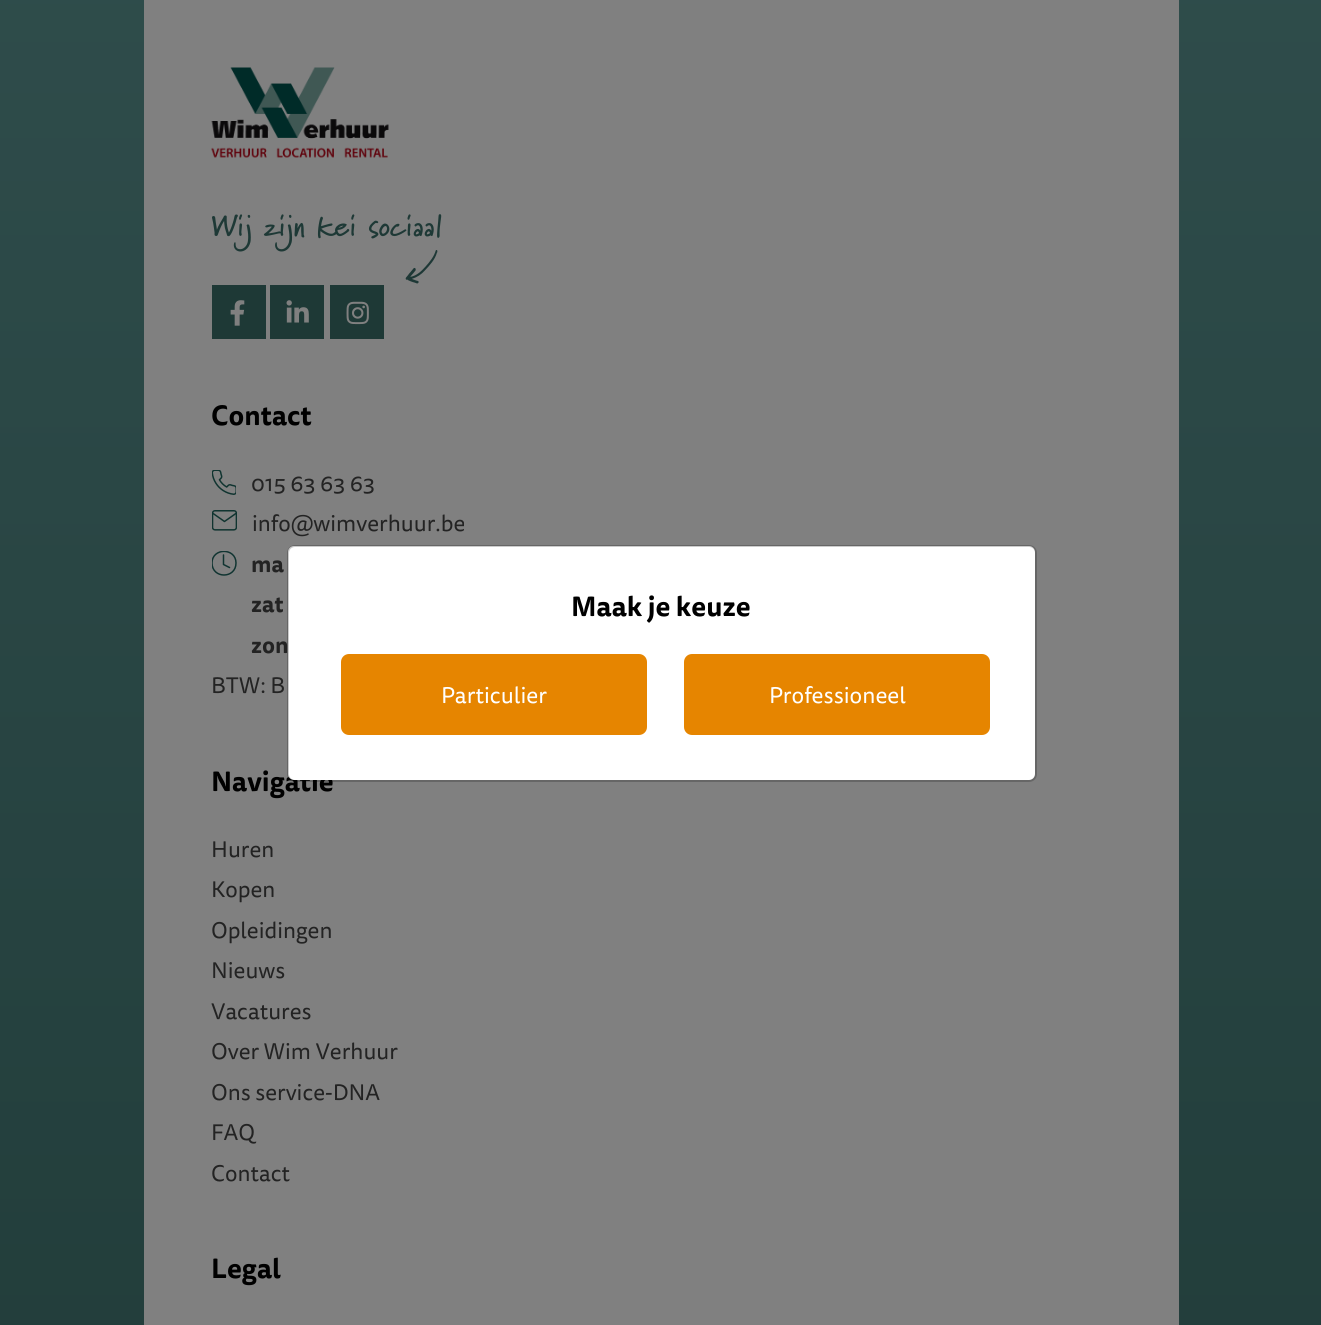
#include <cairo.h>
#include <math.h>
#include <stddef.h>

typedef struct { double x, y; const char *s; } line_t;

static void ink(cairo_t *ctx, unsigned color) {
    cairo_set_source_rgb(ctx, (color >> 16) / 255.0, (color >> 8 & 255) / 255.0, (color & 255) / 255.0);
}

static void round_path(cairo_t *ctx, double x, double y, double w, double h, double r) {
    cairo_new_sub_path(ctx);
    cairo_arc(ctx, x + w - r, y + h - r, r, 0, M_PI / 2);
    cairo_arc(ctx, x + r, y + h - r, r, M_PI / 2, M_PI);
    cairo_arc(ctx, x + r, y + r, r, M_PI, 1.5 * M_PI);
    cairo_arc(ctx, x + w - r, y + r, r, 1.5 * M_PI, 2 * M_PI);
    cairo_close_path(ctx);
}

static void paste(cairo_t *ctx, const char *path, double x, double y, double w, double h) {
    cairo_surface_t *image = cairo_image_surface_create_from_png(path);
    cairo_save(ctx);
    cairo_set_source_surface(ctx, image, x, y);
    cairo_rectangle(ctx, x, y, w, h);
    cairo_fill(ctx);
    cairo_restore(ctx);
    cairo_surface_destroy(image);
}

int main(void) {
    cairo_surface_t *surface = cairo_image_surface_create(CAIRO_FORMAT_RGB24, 1321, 1325);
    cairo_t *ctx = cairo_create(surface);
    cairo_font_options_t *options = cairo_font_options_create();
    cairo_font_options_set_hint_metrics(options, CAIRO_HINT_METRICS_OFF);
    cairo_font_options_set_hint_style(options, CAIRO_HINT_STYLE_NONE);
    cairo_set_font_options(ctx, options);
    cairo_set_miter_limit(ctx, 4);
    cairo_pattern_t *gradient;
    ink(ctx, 0xFFFFFF);
    cairo_paint(ctx);
    gradient = cairo_pattern_create_linear(661, -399, 661, 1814);
    cairo_pattern_add_color_stop_rgba(gradient, 0, 0.196, 0.314, 0.31, 1);
    cairo_pattern_add_color_stop_rgba(gradient, 1, 0.118, 0.224, 0.212, 1);
    cairo_set_source(ctx, gradient);
    cairo_pattern_destroy(gradient);
    cairo_rectangle(ctx, 0, 0, 1321, 1325);
    cairo_fill(ctx);
    ink(ctx, 0x808080);
    cairo_rectangle(ctx, 144, 0, 1035, 1325);
    cairo_fill(ctx);
    paste(ctx, "media/1.png", 211, 67, 178, 91);
    cairo_select_font_face(ctx, "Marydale", CAIRO_FONT_SLANT_NORMAL, CAIRO_FONT_WEIGHT_BOLD);
    cairo_set_font_size(ctx, 30);
    ink(ctx, 0x1E3936);
    cairo_move_to(ctx, 211, 236);
    cairo_show_text(ctx, "Wij zijn kei sociaal");
    paste(ctx, "media/2.png", 405, 250, 33, 34);
    cairo_rectangle(ctx, 212, 285, 54, 54);
    cairo_fill(ctx);
    paste(ctx, "media/3.png", 230, 300, 15, 26);
    cairo_rectangle(ctx, 270, 285, 54, 54);
    cairo_fill(ctx);
    paste(ctx, "media/4.png", 286, 300, 23, 23);
    cairo_rectangle(ctx, 330, 285, 54, 54);
    cairo_fill(ctx);
    paste(ctx, "media/5.png", 346, 301, 23, 24);
    cairo_select_font_face(ctx, "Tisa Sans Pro", CAIRO_FONT_SLANT_NORMAL, CAIRO_FONT_WEIGHT_BOLD);
    cairo_set_font_size(ctx, 27.25);
    ink(ctx, 0x000000);
    cairo_move_to(ctx, 211, 425);
    cairo_show_text(ctx, "Contact");
    paste(ctx, "media/6.png", 212, 470, 24, 25);
    cairo_select_font_face(ctx, "Tisa Sans Pro", CAIRO_FONT_SLANT_NORMAL, CAIRO_FONT_WEIGHT_NORMAL);
    cairo_set_font_size(ctx, 22.5);
    ink(ctx, 0x232323);
    cairo_move_to(ctx, 251, 491);
    cairo_show_text(ctx, "015 63 63 63");
    paste(ctx, "media/7.png", 212, 510, 25, 21);
    cairo_move_to(ctx, 252, 531);
    cairo_show_text(ctx, "info@wimverhuur.be");
    cairo_save(ctx);
    cairo_rectangle(ctx, 212, 551, 25, 25);
    cairo_clip(ctx);
    cairo_new_path(ctx);
    cairo_move_to(ctx, 236, 563);
    cairo_curve_to(ctx, 236, 579, 212, 579, 212, 563);
    cairo_curve_to(ctx, 212, 547.5, 236, 547.5, 236, 563);
    cairo_close_path(ctx);
    ink(ctx, 0x103431);
    cairo_set_line_width(ctx, 1.5);
    cairo_set_line_cap(ctx, CAIRO_LINE_CAP_ROUND);
    cairo_set_line_join(ctx, CAIRO_LINE_JOIN_ROUND);
    cairo_stroke(ctx);
    cairo_restore(ctx);
    cairo_new_path(ctx);
    cairo_move_to(ctx, 223.5, 555);
    cairo_line_to(ctx, 223.5, 564.5);
    cairo_line_to(ctx, 229.5, 567.5);
    ink(ctx, 0x103431);
    cairo_set_line_width(ctx, 1.5);
    cairo_set_line_cap(ctx, CAIRO_LINE_CAP_ROUND);
    cairo_set_line_join(ctx, CAIRO_LINE_JOIN_ROUND);
    cairo_stroke(ctx);
    cairo_select_font_face(ctx, "Tisa Sans Pro", CAIRO_FONT_SLANT_NORMAL, CAIRO_FONT_WEIGHT_BOLD);
    ink(ctx, 0x232323);
    {
        static const line_t items[] = {
            {251, 572, "ma"},
            {251, 612, "zat"},
            {251, 653, "zon"},
        };
        for (size_t i = 0; i < sizeof items / sizeof *items; i++) {
            cairo_move_to(ctx, items[i].x, items[i].y);
            cairo_show_text(ctx, items[i].s);
        }
    }
    cairo_select_font_face(ctx, "Tisa Sans Pro", CAIRO_FONT_SLANT_NORMAL, CAIRO_FONT_WEIGHT_NORMAL);
    cairo_move_to(ctx, 211, 693);
    cairo_show_text(ctx, "BTW: B");
    cairo_select_font_face(ctx, "Tisa Sans Pro", CAIRO_FONT_SLANT_NORMAL, CAIRO_FONT_WEIGHT_BOLD);
    cairo_set_font_size(ctx, 27.25);
    ink(ctx, 0x000000);
    cairo_move_to(ctx, 211, 791);
    cairo_show_text(ctx, "Navigatie");
    cairo_select_font_face(ctx, "Tisa Sans Pro", CAIRO_FONT_SLANT_NORMAL, CAIRO_FONT_WEIGHT_NORMAL);
    cairo_set_font_size(ctx, 22.5);
    ink(ctx, 0x232323);
    {
        static const line_t items[] = {
            {211, 857, "Huren"},
            {211, 897, "Kopen"},
            {211, 938, "Opleidingen"},
            {211, 978, "Nieuws"},
            {211, 1019, "Vacatures"},
            {211, 1059, "Over Wim Verhuur"},
            {211, 1100, "Ons service-DNA"},
            {211, 1140, "FAQ"},
            {211, 1181, "Contact"},
        };
        for (size_t i = 0; i < sizeof items / sizeof *items; i++) {
            cairo_move_to(ctx, items[i].x, items[i].y);
            cairo_show_text(ctx, items[i].s);
        }
    }
    cairo_select_font_face(ctx, "Tisa Sans Pro", CAIRO_FONT_SLANT_NORMAL, CAIRO_FONT_WEIGHT_BOLD);
    cairo_set_font_size(ctx, 27.25);
    ink(ctx, 0x000000);
    cairo_move_to(ctx, 211, 1278);
    cairo_show_text(ctx, "Legal");
    ink(ctx, 0xFFFFFF);
    round_path(ctx, 288, 546, 747, 234, 6);
    cairo_fill(ctx);
    round_path(ctx, 288, 546, 748, 235, 7);
    cairo_set_source_rgba(ctx, 0, 0, 0, 0.2);
    cairo_set_line_width(ctx, 2);
    cairo_set_line_cap(ctx, CAIRO_LINE_CAP_BUTT);
    cairo_set_line_join(ctx, CAIRO_LINE_JOIN_MITER);
    cairo_stroke(ctx);
    ink(ctx, 0x000000);
    cairo_move_to(ctx, 571, 616);
    cairo_show_text(ctx, "Maak je keuze");
    ink(ctx, 0xE68500);
    round_path(ctx, 342, 655, 304, 79, 7);
    cairo_fill_preserve(ctx);
    cairo_stroke(ctx);
    cairo_select_font_face(ctx, "Tisa Sans Pro", CAIRO_FONT_SLANT_NORMAL, CAIRO_FONT_WEIGHT_NORMAL);
    cairo_set_font_size(ctx, 22.75);
    ink(ctx, 0xFFFFFF);
    cairo_move_to(ctx, 441, 703);
    cairo_show_text(ctx, "Particulier");
    ink(ctx, 0xE68500);
    round_path(ctx, 685, 655, 304, 79, 7);
    cairo_fill_preserve(ctx);
    cairo_stroke(ctx);
    ink(ctx, 0xFFFFFF);
    cairo_move_to(ctx, 769, 703);
    cairo_show_text(ctx, "Professioneel");
    cairo_surface_write_to_png(surface, "image.png");
    cairo_font_options_destroy(options);
    cairo_destroy(ctx);
    cairo_surface_destroy(surface);
    return 0;
}
